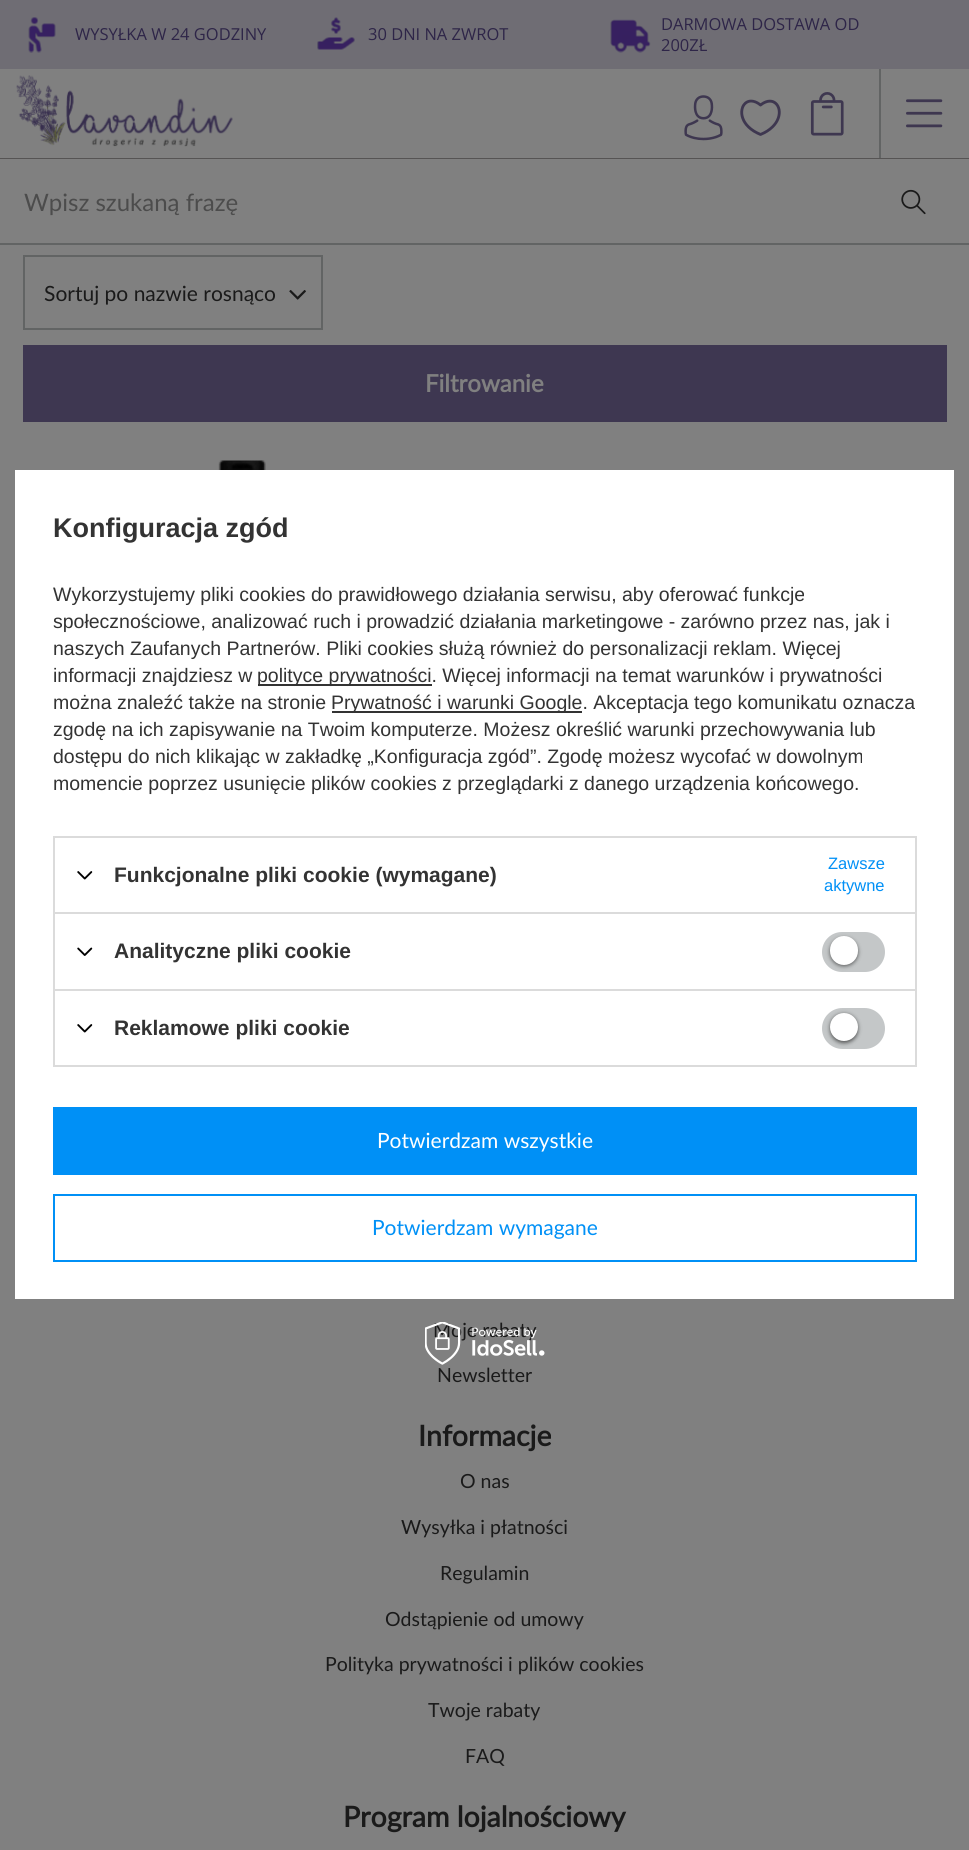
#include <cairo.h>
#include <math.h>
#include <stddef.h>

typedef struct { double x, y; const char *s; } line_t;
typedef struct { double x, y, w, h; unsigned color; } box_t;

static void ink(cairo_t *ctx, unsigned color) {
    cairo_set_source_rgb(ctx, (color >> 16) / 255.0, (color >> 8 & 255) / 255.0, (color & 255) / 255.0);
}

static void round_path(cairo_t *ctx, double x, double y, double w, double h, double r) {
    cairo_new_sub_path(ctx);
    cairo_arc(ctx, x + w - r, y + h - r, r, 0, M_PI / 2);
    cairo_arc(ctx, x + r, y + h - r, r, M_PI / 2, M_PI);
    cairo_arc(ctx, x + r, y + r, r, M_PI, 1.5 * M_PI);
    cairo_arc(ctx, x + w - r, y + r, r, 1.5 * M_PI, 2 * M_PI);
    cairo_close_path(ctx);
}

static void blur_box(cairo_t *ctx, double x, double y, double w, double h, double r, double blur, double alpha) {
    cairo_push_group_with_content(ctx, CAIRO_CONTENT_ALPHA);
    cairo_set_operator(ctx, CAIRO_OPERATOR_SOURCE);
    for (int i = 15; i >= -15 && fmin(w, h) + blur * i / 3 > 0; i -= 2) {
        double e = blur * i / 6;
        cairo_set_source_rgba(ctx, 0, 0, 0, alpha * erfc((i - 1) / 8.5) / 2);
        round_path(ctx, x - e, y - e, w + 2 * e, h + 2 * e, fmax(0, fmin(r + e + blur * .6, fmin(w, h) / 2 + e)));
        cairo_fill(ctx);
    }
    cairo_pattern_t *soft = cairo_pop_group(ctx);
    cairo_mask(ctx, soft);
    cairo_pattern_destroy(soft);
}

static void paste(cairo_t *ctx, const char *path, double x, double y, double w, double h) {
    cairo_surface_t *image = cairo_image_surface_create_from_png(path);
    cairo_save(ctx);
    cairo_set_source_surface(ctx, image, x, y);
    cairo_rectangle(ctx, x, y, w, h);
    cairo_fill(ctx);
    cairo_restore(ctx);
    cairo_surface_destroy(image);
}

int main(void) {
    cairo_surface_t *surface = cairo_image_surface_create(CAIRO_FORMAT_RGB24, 969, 1850);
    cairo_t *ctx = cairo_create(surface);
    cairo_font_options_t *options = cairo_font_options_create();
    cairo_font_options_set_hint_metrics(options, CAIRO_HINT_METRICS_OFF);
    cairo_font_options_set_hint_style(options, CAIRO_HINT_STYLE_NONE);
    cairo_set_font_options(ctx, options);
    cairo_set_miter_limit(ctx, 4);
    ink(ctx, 0x808080);
    cairo_paint(ctx);
    ink(ctx, 0x6F6D74);
    cairo_rectangle(ctx, 0, 0, 969, 69);
    cairo_fill(ctx);
    paste(ctx, "media/1.png", 28, 17, 28, 36);
    cairo_select_font_face(ctx, "Open Sans", CAIRO_FONT_SLANT_NORMAL, CAIRO_FONT_WEIGHT_NORMAL);
    cairo_set_font_size(ctx, 16.5);
    ink(ctx, 0x2E2548);
    cairo_move_to(ctx, 75, 40);
    cairo_show_text(ctx, "WYSYŁKA W 24 GODZINY");
    paste(ctx, "media/2.png", 317, 17, 38, 33);
    cairo_move_to(ctx, 368, 40);
    cairo_show_text(ctx, "30 DNI NA ZWROT");
    paste(ctx, "media/3.png", 610, 19, 41, 34);
    cairo_move_to(ctx, 661, 30);
    cairo_show_text(ctx, "DARMOWA DOSTAWA OD");
    cairo_move_to(ctx, 661, 51);
    cairo_show_text(ctx, "200ZŁ");
    ink(ctx, 0x565454);
    cairo_rectangle(ctx, 0, 158, 969, 1);
    cairo_fill(ctx);
    paste(ctx, "media/4.png", 16, 75, 217, 72);
    paste(ctx, "media/5.png", 684, 95, 39, 46);
    paste(ctx, "media/6.png", 740, 99, 41, 37);
    paste(ctx, "media/7.png", 810, 92, 34, 44);
    ink(ctx, 0x626464);
    cairo_rectangle(ctx, 879, 69, 2, 89);
    cairo_fill(ctx);
    paste(ctx, "media/8.png", 906, 99, 37, 29);
    cairo_rectangle(ctx, 0, 243, 969, 2);
    cairo_fill(ctx);
    cairo_select_font_face(ctx, "Lato", CAIRO_FONT_SLANT_NORMAL, CAIRO_FONT_WEIGHT_NORMAL);
    cairo_set_font_size(ctx, 24);
    ink(ctx, 0x4C4C4C);
    cairo_move_to(ctx, 24, 211);
    cairo_show_text(ctx, "Wpisz szukaną frazę");
    paste(ctx, "media/9.png", 901, 189, 25, 26);
    cairo_rectangle(ctx, 24, 256, 298, 73);
    ink(ctx, 0x626464);
    cairo_stroke(ctx);
    cairo_set_font_size(ctx, 21);
    ink(ctx, 0x1A1A1A);
    cairo_move_to(ctx, 44, 301);
    cairo_show_text(ctx, "Sortuj po nazwie rosnąco");
    paste(ctx, "media/10.png", 289, 290, 17, 10);
    ink(ctx, 0x3E3751);
    cairo_rectangle(ctx, 23, 345, 924, 77);
    cairo_fill(ctx);
    cairo_select_font_face(ctx, "Lato", CAIRO_FONT_SLANT_NORMAL, CAIRO_FONT_WEIGHT_BOLD);
    cairo_set_font_size(ctx, 24);
    ink(ctx, 0x808080);
    cairo_move_to(ctx, 425, 392);
    cairo_show_text(ctx, "Filtrowanie");
    paste(ctx, "media/11.png", 218, 460, 48, 10);
    ink(ctx, 0xFFFFFF);
    cairo_rectangle(ctx, 15, 470, 939, 829);
    cairo_fill(ctx);
    cairo_select_font_face(ctx, "Liberation Sans", CAIRO_FONT_SLANT_NORMAL, CAIRO_FONT_WEIGHT_BOLD);
    cairo_set_font_size(ctx, 27);
    ink(ctx, 0x333333);
    cairo_move_to(ctx, 53, 537);
    cairo_show_text(ctx, "Konfiguracja zgód");
    cairo_select_font_face(ctx, "Liberation Sans", CAIRO_FONT_SLANT_NORMAL, CAIRO_FONT_WEIGHT_NORMAL);
    cairo_set_font_size(ctx, 19.5);
    {
        static const line_t items[] = {
            {53, 601, "Wykorzystujemy pliki cookies do prawidłowego działania serwisu, aby oferować funkcje"},
            {53, 628, "społecznościowe, analizować ruch i prowadzić działania marketingowe - zarówno przez nas, jak i"},
            {53, 655, "naszych Zaufanych Partnerów. Pliki cookies służą również do personalizacji reklam. Więcej"},
            {53, 682, "informacji znajdziesz w"},
        };
        for (size_t i = 0; i < sizeof items / sizeof *items; i++) {
            cairo_move_to(ctx, items[i].x, items[i].y);
            cairo_show_text(ctx, items[i].s);
        }
    }
    cairo_rectangle(ctx, 258, 684, 174, 2);
    cairo_fill(ctx);
    cairo_move_to(ctx, 257, 682);
    cairo_show_text(ctx, "polityce prywatności. Więcej informacji na temat warunków i prywatności");
    cairo_move_to(ctx, 53, 709);
    cairo_show_text(ctx, "można znaleźć także na stronie");
    cairo_rectangle(ctx, 332, 711, 250, 2);
    cairo_fill(ctx);
    {
        static const line_t items[] = {
            {331, 709, "Prywatność i warunki Google. Akceptacja tego komunikatu oznacza"},
            {53, 736, "zgodę na ich zapisywanie na Twoim komputerze. Możesz określić warunki przechowywania lub"},
            {53, 763, "dostępu do nich klikając w zakładkę „Konfiguracja zgód”. Zgodę możesz wycofać w dowolnym"},
            {53, 790, "momencie poprzez usunięcie plików cookies z przeglądarki z danego urządzenia końcowego."},
        };
        for (size_t i = 0; i < sizeof items / sizeof *items; i++) {
            cairo_move_to(ctx, items[i].x, items[i].y);
            cairo_show_text(ctx, items[i].s);
        }
    }
    {
        static const box_t items[] = {
            {53, 836, 864, 2, 0xDBDBDB},
            {915, 836, 2, 76, 0xDBDBDB},
            {53, 836, 2, 76, 0xDBDBDB},
        };
        for (size_t i = 0; i < sizeof items / sizeof *items; i++) {
            ink(ctx, items[i].color);
            cairo_rectangle(ctx, items[i].x, items[i].y, items[i].w, items[i].h);
            cairo_fill(ctx);
        }
    }
    paste(ctx, "media/12.png", 77, 871, 16, 9);
    cairo_select_font_face(ctx, "Liberation Sans", CAIRO_FONT_SLANT_NORMAL, CAIRO_FONT_WEIGHT_BOLD);
    cairo_set_font_size(ctx, 21);
    ink(ctx, 0x333333);
    cairo_move_to(ctx, 114, 882);
    cairo_show_text(ctx, "Funkcjonalne pliki cookie (wymagane)");
    cairo_select_font_face(ctx, "Liberation Sans", CAIRO_FONT_SLANT_NORMAL, CAIRO_FONT_WEIGHT_NORMAL);
    cairo_set_font_size(ctx, 16.5);
    ink(ctx, 0x0090F6);
    cairo_move_to(ctx, 828, 869);
    cairo_show_text(ctx, "Zawsze");
    cairo_move_to(ctx, 824, 891);
    cairo_show_text(ctx, "aktywne");
    {
        static const box_t items[] = {
            {53, 912, 864, 2, 0xDBDBDB},
            {915, 912, 2, 77, 0xDBDBDB},
            {53, 912, 2, 77, 0xDBDBDB},
        };
        for (size_t i = 0; i < sizeof items / sizeof *items; i++) {
            ink(ctx, items[i].color);
            cairo_rectangle(ctx, items[i].x, items[i].y, items[i].w, items[i].h);
            cairo_fill(ctx);
        }
    }
    paste(ctx, "media/13.png", 77, 947, 16, 9);
    cairo_select_font_face(ctx, "Liberation Sans", CAIRO_FONT_SLANT_NORMAL, CAIRO_FONT_WEIGHT_BOLD);
    cairo_set_font_size(ctx, 21);
    ink(ctx, 0x333333);
    cairo_move_to(ctx, 114, 958);
    cairo_show_text(ctx, "Analityczne pliki cookie");
    ink(ctx, 0xC4C7C8);
    round_path(ctx, 822, 932, 63, 40, 20);
    cairo_fill(ctx);
    ink(ctx, 0x000000);
    blur_box(ctx, 830, 938, 28, 28, 14, 2, 0.56);
    ink(ctx, 0xFFFFFF);
    round_path(ctx, 830, 936, 28, 29, 14);
    cairo_fill(ctx);
    cairo_rectangle(ctx, 54, 990, 862, 76);
    ink(ctx, 0xDBDBDB);
    cairo_stroke(ctx);
    paste(ctx, "media/12.png", 77, 1024, 16, 9);
    ink(ctx, 0x333333);
    cairo_move_to(ctx, 114, 1035);
    cairo_show_text(ctx, "Reklamowe pliki cookie");
    ink(ctx, 0xC4C7C8);
    round_path(ctx, 822, 1008, 63, 41, 20.5);
    cairo_fill(ctx);
    ink(ctx, 0x000000);
    blur_box(ctx, 830, 1014, 28, 29, 14, 2, 0.56);
    ink(ctx, 0xFFFFFF);
    cairo_arc(ctx, 844, 1027, 14, 0, 2 * M_PI);
    cairo_fill(ctx);
    ink(ctx, 0x0090F6);
    cairo_rectangle(ctx, 53, 1107, 864, 68);
    cairo_fill(ctx);
    cairo_select_font_face(ctx, "Lato", CAIRO_FONT_SLANT_NORMAL, CAIRO_FONT_WEIGHT_NORMAL);
    ink(ctx, 0xFFFFFF);
    cairo_move_to(ctx, 377, 1148);
    cairo_show_text(ctx, "Potwierdzam wszystkie");
    cairo_rectangle(ctx, 54, 1195, 862, 66);
    ink(ctx, 0x0090F6);
    cairo_stroke(ctx);
    cairo_move_to(ctx, 372, 1235);
    cairo_show_text(ctx, "Potwierdzam wymagane");
    cairo_set_font_size(ctx, 19.5);
    ink(ctx, 0x1A1A1A);
    cairo_move_to(ctx, 433, 1337);
    cairo_show_text(ctx, "Moje rabaty");
    paste(ctx, "media/14.png", 425, 1322, 120, 43);
    cairo_move_to(ctx, 437, 1382);
    cairo_show_text(ctx, "Newsletter");
    cairo_select_font_face(ctx, "Lato", CAIRO_FONT_SLANT_NORMAL, CAIRO_FONT_WEIGHT_BOLD);
    cairo_set_font_size(ctx, 28.5);
    cairo_move_to(ctx, 418, 1446);
    cairo_show_text(ctx, "Informacje");
    cairo_select_font_face(ctx, "Lato", CAIRO_FONT_SLANT_NORMAL, CAIRO_FONT_WEIGHT_NORMAL);
    cairo_set_font_size(ctx, 19.5);
    {
        static const line_t items[] = {
            {460, 1488, "O nas"},
            {401, 1534, "Wysyłka i płatności"},
            {440, 1580, "Regulamin"},
            {385, 1626, "Odstąpienie od umowy"},
            {325, 1671, "Polityka prywatności i plików cookies"},
            {428, 1717, "Twoje rabaty"},
            {465, 1763, "FAQ"},
        };
        for (size_t i = 0; i < sizeof items / sizeof *items; i++) {
            cairo_move_to(ctx, items[i].x, items[i].y);
            cairo_show_text(ctx, items[i].s);
        }
    }
    cairo_select_font_face(ctx, "Lato", CAIRO_FONT_SLANT_NORMAL, CAIRO_FONT_WEIGHT_BOLD);
    cairo_set_font_size(ctx, 28.5);
    cairo_move_to(ctx, 343, 1827);
    cairo_show_text(ctx, "Program lojalnościowy");
    cairo_surface_write_to_png(surface, "image.png");
    cairo_font_options_destroy(options);
    cairo_destroy(ctx);
    cairo_surface_destroy(surface);
    return 0;
}
